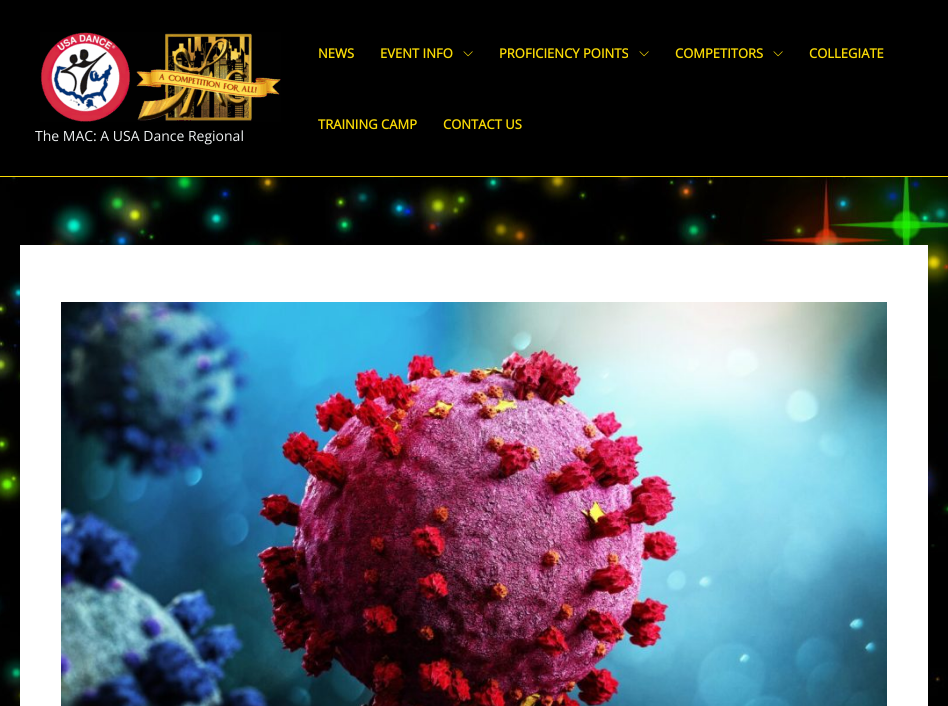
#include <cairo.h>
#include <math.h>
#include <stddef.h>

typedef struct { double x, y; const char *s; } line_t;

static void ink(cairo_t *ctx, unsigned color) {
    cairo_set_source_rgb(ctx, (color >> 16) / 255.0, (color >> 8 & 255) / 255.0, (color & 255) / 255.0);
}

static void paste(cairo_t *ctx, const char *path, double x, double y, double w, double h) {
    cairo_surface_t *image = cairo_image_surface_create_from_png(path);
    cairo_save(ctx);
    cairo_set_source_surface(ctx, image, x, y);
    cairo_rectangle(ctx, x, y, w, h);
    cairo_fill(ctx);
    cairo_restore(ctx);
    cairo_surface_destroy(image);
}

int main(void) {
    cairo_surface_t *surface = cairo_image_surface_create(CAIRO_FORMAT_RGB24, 948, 706);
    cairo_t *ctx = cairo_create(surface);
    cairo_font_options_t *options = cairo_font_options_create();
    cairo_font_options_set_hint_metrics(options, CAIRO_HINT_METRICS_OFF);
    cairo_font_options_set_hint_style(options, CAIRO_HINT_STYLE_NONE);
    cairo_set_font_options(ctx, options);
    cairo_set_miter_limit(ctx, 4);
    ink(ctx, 0xFFFFFF);
    cairo_paint(ctx);
    paste(ctx, "media/1.png", 0, 177, 948, 529);
    ink(ctx, 0x000000);
    cairo_rectangle(ctx, 0, 0, 948, 176);
    cairo_fill(ctx);
    ink(ctx, 0xF9DA05);
    cairo_rectangle(ctx, 0, 176, 948, 1);
    cairo_fill(ctx);
    cairo_select_font_face(ctx, "Open Sans", CAIRO_FONT_SLANT_NORMAL, CAIRO_FONT_WEIGHT_BOLD);
    cairo_set_font_size(ctx, 13);
    cairo_move_to(ctx, 318, 58);
    cairo_show_text(ctx, "NEWS");
    cairo_move_to(ctx, 380, 58);
    cairo_show_text(ctx, "EVENT INFO");
    paste(ctx, "media/2.png", 463, 51, 10, 6);
    cairo_move_to(ctx, 499, 58);
    cairo_show_text(ctx, "PROFICIENCY POINTS");
    paste(ctx, "media/2.png", 639, 51, 10, 6);
    cairo_move_to(ctx, 675, 58);
    cairo_show_text(ctx, "COMPETITORS");
    paste(ctx, "media/2.png", 773, 51, 10, 6);
    {
        static const line_t items[] = {
            {809, 58, "COLLEGIATE"},
            {318, 129, "TRAINING CAMP"},
            {443, 129, "CONTACT US"},
        };
        for (size_t i = 0; i < sizeof items / sizeof *items; i++) {
            cairo_move_to(ctx, items[i].x, items[i].y);
            cairo_show_text(ctx, items[i].s);
        }
    }
    paste(ctx, "media/3.png", 40, 32, 241, 90);
    cairo_select_font_face(ctx, "Open Sans", CAIRO_FONT_SLANT_NORMAL, CAIRO_FONT_WEIGHT_NORMAL);
    cairo_set_font_size(ctx, 14);
    ink(ctx, 0xEFF2F3);
    cairo_move_to(ctx, 35, 141);
    cairo_show_text(ctx, "The MAC: A USA Dance Regional");
    ink(ctx, 0xFFFFFF);
    cairo_rectangle(ctx, 20, 245, 908, 461);
    cairo_fill(ctx);
    paste(ctx, "media/4.png", 61, 302, 826, 404);
    cairo_surface_write_to_png(surface, "image.png");
    cairo_font_options_destroy(options);
    cairo_destroy(ctx);
    cairo_surface_destroy(surface);
    return 0;
}
